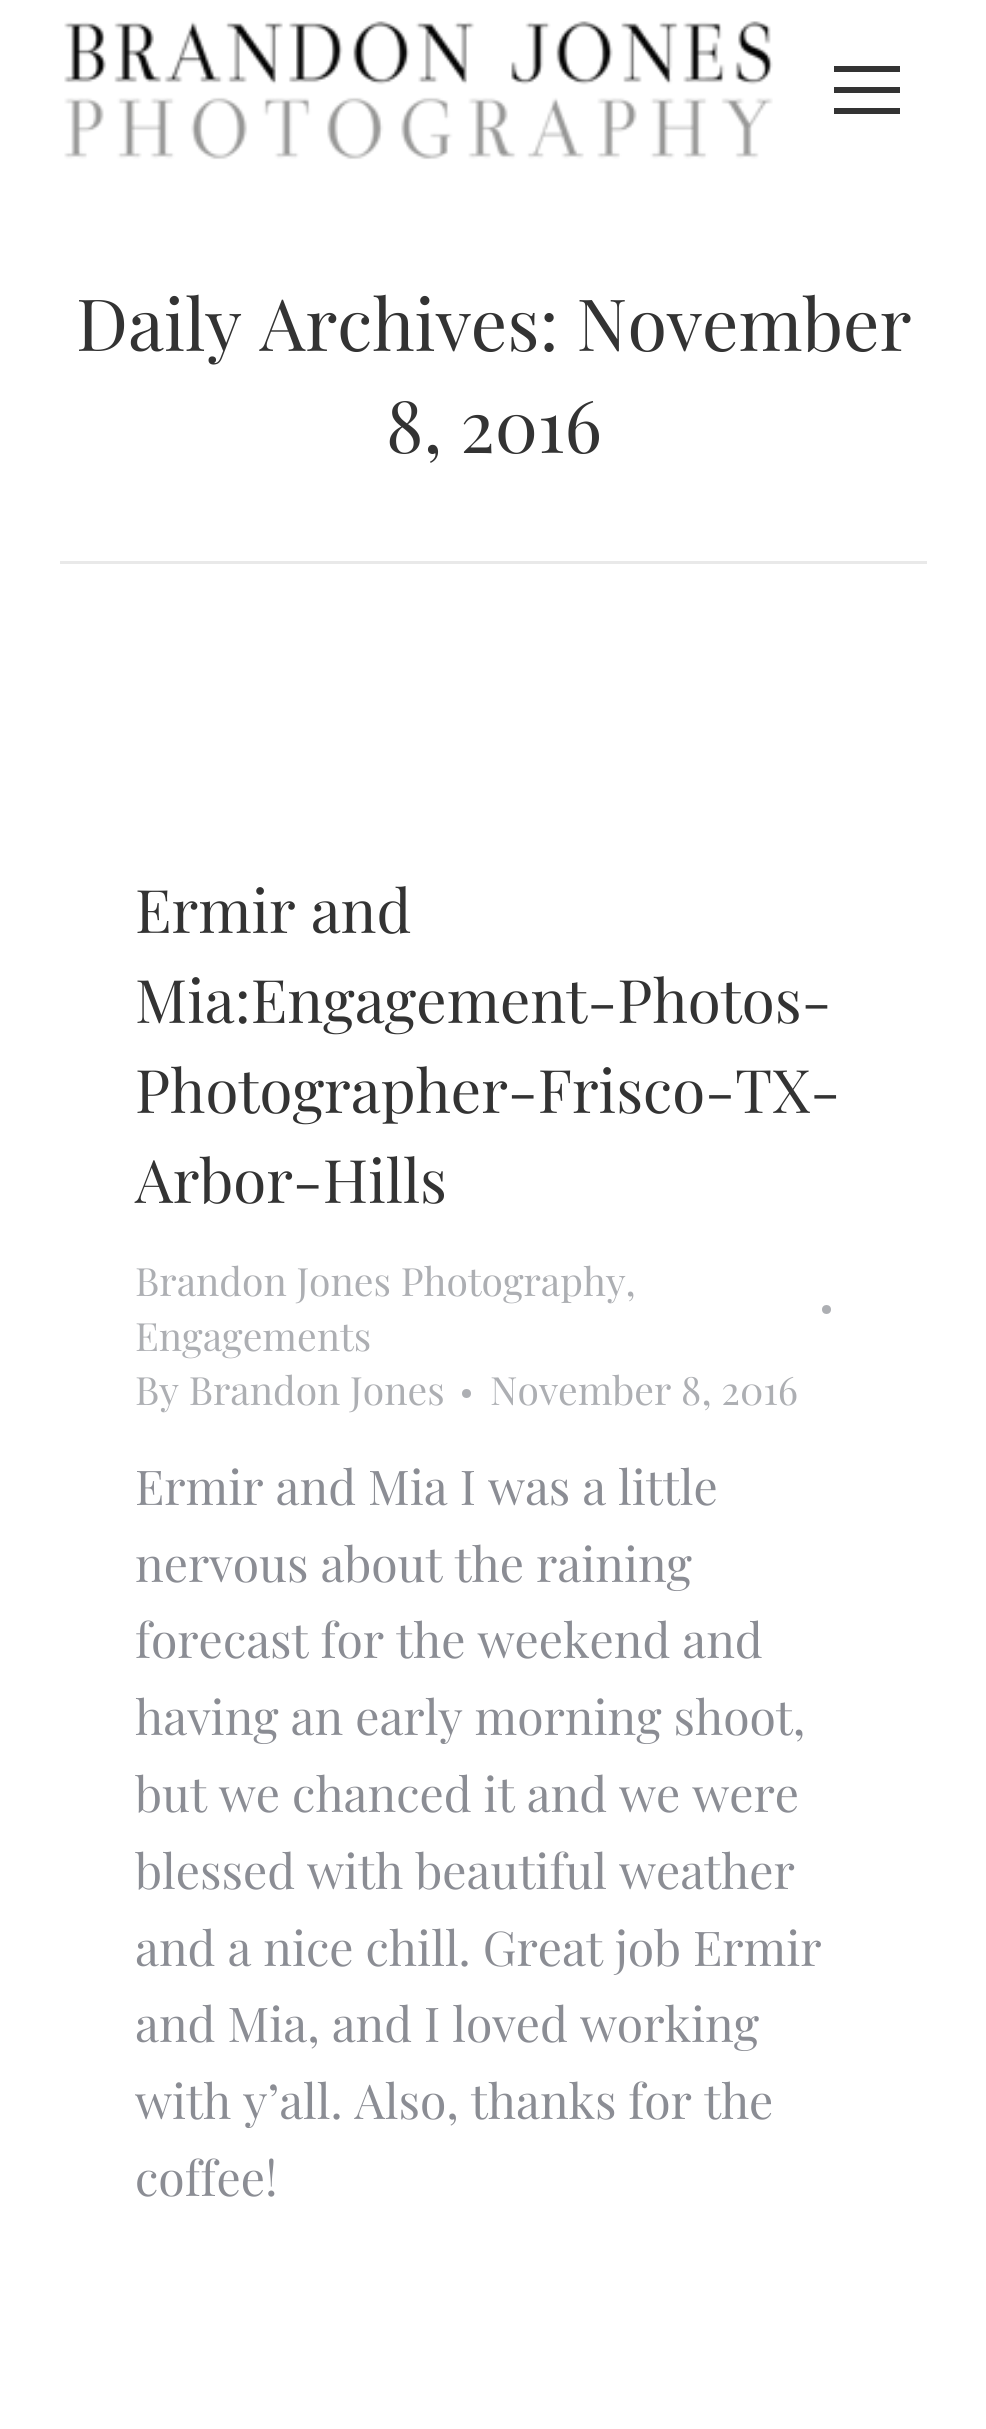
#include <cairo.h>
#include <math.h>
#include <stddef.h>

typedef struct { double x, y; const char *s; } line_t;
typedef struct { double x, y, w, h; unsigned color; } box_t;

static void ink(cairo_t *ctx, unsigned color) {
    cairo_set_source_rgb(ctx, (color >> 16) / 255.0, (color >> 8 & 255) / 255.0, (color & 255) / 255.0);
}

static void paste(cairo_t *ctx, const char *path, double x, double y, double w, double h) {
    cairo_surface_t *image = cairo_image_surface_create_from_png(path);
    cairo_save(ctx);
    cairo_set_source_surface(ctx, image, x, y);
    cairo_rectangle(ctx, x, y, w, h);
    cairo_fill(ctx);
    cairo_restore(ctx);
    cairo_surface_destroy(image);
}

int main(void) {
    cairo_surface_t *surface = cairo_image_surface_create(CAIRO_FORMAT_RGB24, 986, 2429);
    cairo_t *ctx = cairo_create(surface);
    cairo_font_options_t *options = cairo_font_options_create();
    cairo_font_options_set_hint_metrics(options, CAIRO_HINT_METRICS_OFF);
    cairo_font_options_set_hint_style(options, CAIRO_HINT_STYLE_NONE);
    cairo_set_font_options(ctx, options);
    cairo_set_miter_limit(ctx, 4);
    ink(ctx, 0xFFFFFF);
    cairo_paint(ctx);
    paste(ctx, "media/1.png", 64, 21, 709, 139);
    {
        static const box_t items[] = {
            {834, 66, 66, 6, 0x333333},
            {834, 87, 66, 6, 0x333333},
            {834, 108, 66, 6, 0x333333},
        };
        for (size_t i = 0; i < sizeof items / sizeof *items; i++) {
            ink(ctx, items[i].color);
            cairo_rectangle(ctx, items[i].x, items[i].y, items[i].w, items[i].h);
            cairo_fill(ctx);
        }
    }
    cairo_select_font_face(ctx, "Playfair Display", CAIRO_FONT_SLANT_NORMAL, CAIRO_FONT_WEIGHT_NORMAL);
    cairo_set_font_size(ctx, 72);
    cairo_move_to(ctx, 76, 351);
    cairo_show_text(ctx, "Daily Archives: November");
    cairo_move_to(ctx, 386, 453);
    cairo_show_text(ctx, "8, 2016");
    ink(ctx, 0xE9E9E9);
    cairo_rectangle(ctx, 60, 561, 867, 3);
    cairo_fill(ctx);
    cairo_set_font_size(ctx, 60);
    ink(ctx, 0x333333);
    {
        static const line_t items[] = {
            {135, 933, "Ermir and"},
            {135, 1023, "Mia:Engagement-Photos-"},
            {135, 1113, "Photographer-Frisco-TX-"},
            {135, 1203, "Arbor-Hills"},
        };
        for (size_t i = 0; i < sizeof items / sizeof *items; i++) {
            cairo_move_to(ctx, items[i].x, items[i].y);
            cairo_show_text(ctx, items[i].s);
        }
    }
    cairo_set_font_size(ctx, 39);
    ink(ctx, 0xADAFB3);
    cairo_move_to(ctx, 135, 1296);
    cairo_show_text(ctx, "Brandon Jones Photography,");
    cairo_new_path(ctx);
    cairo_arc(ctx, 826.5, 1309.5, 4.5, 0, 2 * M_PI);
    cairo_fill(ctx);
    cairo_move_to(ctx, 135, 1351);
    cairo_show_text(ctx, "Engagements");
    cairo_move_to(ctx, 135, 1405);
    cairo_show_text(ctx, "By Brandon Jones");
    cairo_new_path(ctx);
    cairo_arc(ctx, 466.5, 1393.5, 4.5, 0, 2 * M_PI);
    cairo_fill(ctx);
    cairo_move_to(ctx, 490, 1405);
    cairo_show_text(ctx, "November 8, 2016");
    cairo_set_font_size(ctx, 48);
    ink(ctx, 0x8B8D94);
    {
        static const line_t items[] = {
            {135, 1505, "Ermir and Mia I was a little"},
            {135, 1582, "nervous about the raining"},
            {135, 1658, "forecast for the weekend and"},
            {135, 1735, "having an early morning shoot,"},
            {135, 1812, "but we chanced it and we were"},
            {135, 1889, "blessed with beautiful weather"},
            {135, 1966, "and a nice chill. Great job Ermir"},
            {135, 2042, "and Mia, and I loved working"},
            {135, 2119, "with y’all. Also, thanks for the"},
            {135, 2196, "coffee!"},
        };
        for (size_t i = 0; i < sizeof items / sizeof *items; i++) {
            cairo_move_to(ctx, items[i].x, items[i].y);
            cairo_show_text(ctx, items[i].s);
        }
    }
    cairo_surface_write_to_png(surface, "image.png");
    cairo_font_options_destroy(options);
    cairo_destroy(ctx);
    cairo_surface_destroy(surface);
    return 0;
}
